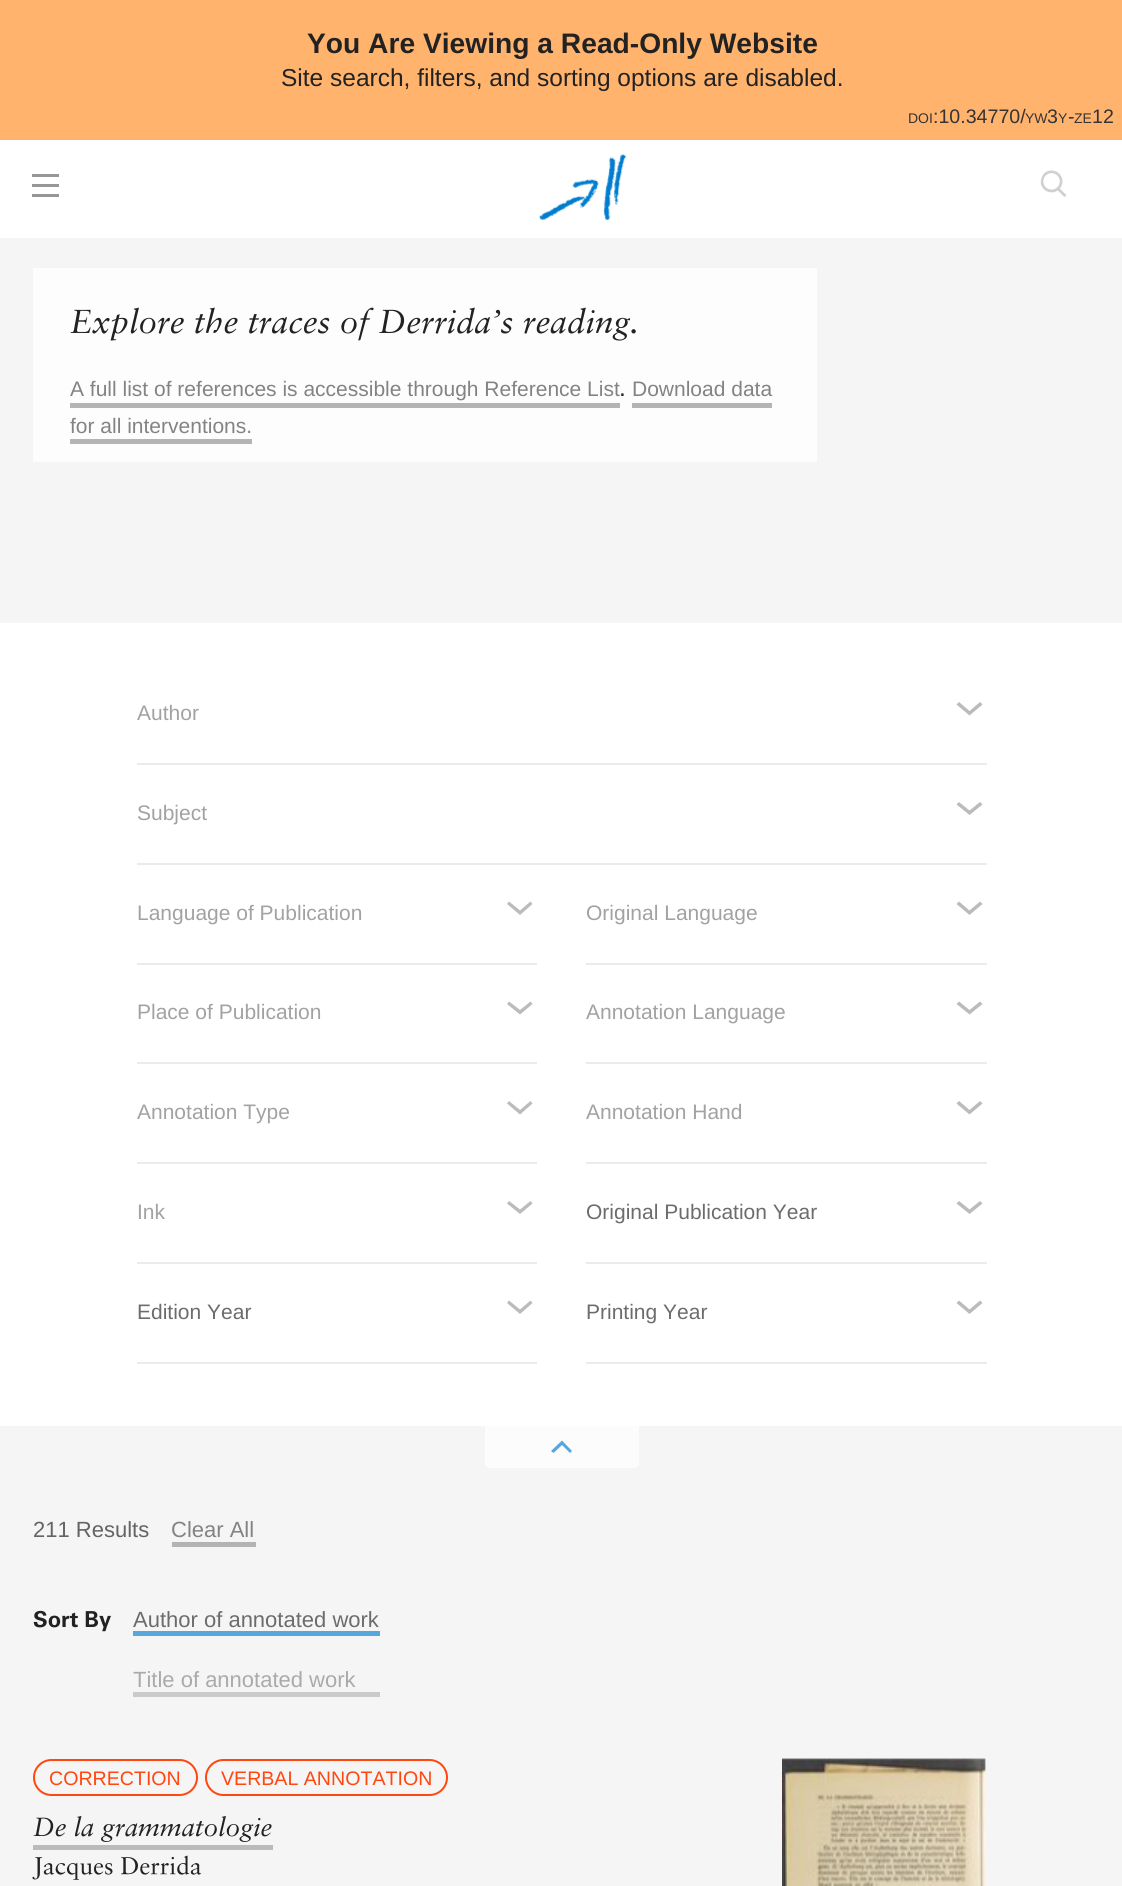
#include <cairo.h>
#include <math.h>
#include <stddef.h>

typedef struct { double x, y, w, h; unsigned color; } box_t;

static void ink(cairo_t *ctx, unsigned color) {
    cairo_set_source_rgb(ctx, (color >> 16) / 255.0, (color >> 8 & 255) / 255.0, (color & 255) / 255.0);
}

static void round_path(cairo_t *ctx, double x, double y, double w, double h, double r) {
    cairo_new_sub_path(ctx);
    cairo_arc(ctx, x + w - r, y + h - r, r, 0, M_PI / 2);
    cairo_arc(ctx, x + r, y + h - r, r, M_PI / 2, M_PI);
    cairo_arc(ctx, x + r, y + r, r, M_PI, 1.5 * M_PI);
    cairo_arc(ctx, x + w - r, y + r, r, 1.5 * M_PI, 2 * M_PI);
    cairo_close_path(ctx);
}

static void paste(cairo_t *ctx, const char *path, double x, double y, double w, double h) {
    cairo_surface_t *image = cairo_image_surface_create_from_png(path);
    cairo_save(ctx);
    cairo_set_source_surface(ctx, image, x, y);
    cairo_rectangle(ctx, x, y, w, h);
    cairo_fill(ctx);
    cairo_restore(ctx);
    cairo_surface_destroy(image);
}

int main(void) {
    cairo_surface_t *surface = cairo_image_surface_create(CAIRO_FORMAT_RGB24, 1122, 1886);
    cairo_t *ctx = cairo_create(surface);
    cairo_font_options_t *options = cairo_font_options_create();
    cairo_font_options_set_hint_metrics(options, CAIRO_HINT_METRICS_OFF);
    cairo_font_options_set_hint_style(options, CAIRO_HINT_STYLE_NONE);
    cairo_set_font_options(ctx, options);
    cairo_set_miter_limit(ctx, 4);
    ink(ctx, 0xF5F5F5);
    cairo_paint(ctx);
    ink(ctx, 0xFFB36D);
    cairo_rectangle(ctx, 0, 0, 1122, 140);
    cairo_fill(ctx);
    cairo_select_font_face(ctx, "Liberation Sans", CAIRO_FONT_SLANT_NORMAL, CAIRO_FONT_WEIGHT_BOLD);
    cairo_set_font_size(ctx, 28.2);
    ink(ctx, 0x222222);
    cairo_move_to(ctx, 307, 53);
    cairo_show_text(ctx, "You Are Viewing a Read-Only Website");
    cairo_select_font_face(ctx, "Liberation Sans", CAIRO_FONT_SLANT_NORMAL, CAIRO_FONT_WEIGHT_NORMAL);
    cairo_set_font_size(ctx, 24.5);
    cairo_move_to(ctx, 281, 86);
    cairo_show_text(ctx, "Site search, filters, and sorting options are disabled.");
    cairo_set_font_size(ctx, 14);
    ink(ctx, 0x343434);
    cairo_move_to(ctx, 908, 123);
    cairo_show_text(ctx, "DOI");
    cairo_set_font_size(ctx, 19.6);
    cairo_move_to(ctx, 933, 123);
    cairo_show_text(ctx, ":10.34770/");
    cairo_set_font_size(ctx, 14);
    cairo_move_to(ctx, 1025, 123);
    cairo_show_text(ctx, "YW");
    cairo_set_font_size(ctx, 19.6);
    cairo_move_to(ctx, 1047, 123);
    cairo_show_text(ctx, "3");
    cairo_set_font_size(ctx, 14);
    cairo_move_to(ctx, 1058, 123);
    cairo_show_text(ctx, "Y");
    cairo_set_font_size(ctx, 19.6);
    cairo_move_to(ctx, 1068, 123);
    cairo_show_text(ctx, "-");
    cairo_set_font_size(ctx, 14);
    cairo_move_to(ctx, 1074, 123);
    cairo_show_text(ctx, "ZE");
    cairo_set_font_size(ctx, 19.6);
    cairo_move_to(ctx, 1092, 123);
    cairo_show_text(ctx, "12");
    ink(ctx, 0xFFFFFF);
    cairo_rectangle(ctx, 0, 140, 1122, 98);
    cairo_fill(ctx);
    paste(ctx, "media/1.png", 539, 154, 88, 67);
    paste(ctx, "media/2.png", 1040, 170, 27, 27);
    {
        static const box_t items[] = {
            {32, 174, 27, 3, 0x979797},
            {32, 184, 27, 3, 0x979797},
            {32, 194, 27, 3, 0x979797},
            {33, 268, 784, 194, 0xFDFDFD},
        };
        for (size_t i = 0; i < sizeof items / sizeof *items; i++) {
            ink(ctx, items[i].color);
            cairo_rectangle(ctx, items[i].x, items[i].y, items[i].w, items[i].h);
            cairo_fill(ctx);
        }
    }
    cairo_select_font_face(ctx, "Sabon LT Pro", CAIRO_FONT_SLANT_ITALIC, CAIRO_FONT_WEIGHT_NORMAL);
    cairo_set_font_size(ctx, 33.25);
    ink(ctx, 0x222222);
    cairo_move_to(ctx, 70, 333);
    cairo_show_text(ctx, "Explore the traces of Derrida’s reading.");
    cairo_select_font_face(ctx, "Liberation Sans", CAIRO_FONT_SLANT_NORMAL, CAIRO_FONT_WEIGHT_NORMAL);
    cairo_set_font_size(ctx, 21);
    ink(ctx, 0x838383);
    cairo_move_to(ctx, 70, 396);
    cairo_show_text(ctx, "A full list of references is accessible through Reference List");
    ink(ctx, 0xB4B4B4);
    cairo_rectangle(ctx, 70, 403, 550, 5);
    cairo_fill(ctx);
    cairo_set_font_size(ctx, 24.5);
    ink(ctx, 0x222222);
    cairo_move_to(ctx, 619, 396);
    cairo_show_text(ctx, ".");
    cairo_set_font_size(ctx, 21);
    ink(ctx, 0x838383);
    cairo_move_to(ctx, 632, 396);
    cairo_show_text(ctx, "Download data");
    ink(ctx, 0xB4B4B4);
    cairo_rectangle(ctx, 632, 403, 140, 5);
    cairo_fill(ctx);
    ink(ctx, 0x838383);
    cairo_move_to(ctx, 70, 433);
    cairo_show_text(ctx, "for all interventions.");
    ink(ctx, 0xB4B4B4);
    cairo_rectangle(ctx, 70, 439, 182, 5);
    cairo_fill(ctx);
    ink(ctx, 0xFFFFFF);
    cairo_rectangle(ctx, 0, 623, 1122, 803);
    cairo_fill(ctx);
    ink(ctx, 0xA2A2A2);
    cairo_move_to(ctx, 137, 720);
    cairo_show_text(ctx, "Author");
    ink(ctx, 0xBBBBBB);
    cairo_new_path(ctx);
    cairo_move_to(ctx, 969.5, 715.5);
    cairo_line_to(ctx, 956.5, 704.5);
    cairo_line_to(ctx, 959, 702);
    cairo_line_to(ctx, 969.5, 711);
    cairo_line_to(ctx, 980, 702);
    cairo_line_to(ctx, 982.5, 704.5);
    cairo_close_path(ctx);
    cairo_fill(ctx);
    ink(ctx, 0xEBEBEB);
    cairo_rectangle(ctx, 137, 763, 850, 2);
    cairo_fill(ctx);
    ink(ctx, 0xA2A2A2);
    cairo_move_to(ctx, 137, 820);
    cairo_show_text(ctx, "Subject");
    ink(ctx, 0xBBBBBB);
    cairo_new_path(ctx);
    cairo_move_to(ctx, 969.5, 815);
    cairo_line_to(ctx, 956.5, 804.5);
    cairo_line_to(ctx, 959, 802);
    cairo_line_to(ctx, 969.5, 810.5);
    cairo_line_to(ctx, 980, 802);
    cairo_line_to(ctx, 982.5, 804.5);
    cairo_close_path(ctx);
    cairo_fill(ctx);
    ink(ctx, 0xEBEBEB);
    cairo_rectangle(ctx, 137, 863, 850, 2);
    cairo_fill(ctx);
    ink(ctx, 0xA2A2A2);
    cairo_move_to(ctx, 137, 920);
    cairo_show_text(ctx, "Language of Publication");
    ink(ctx, 0xBBBBBB);
    cairo_new_path(ctx);
    cairo_move_to(ctx, 520, 915);
    cairo_line_to(ctx, 507, 904);
    cairo_line_to(ctx, 509, 901.5);
    cairo_line_to(ctx, 520, 910.5);
    cairo_line_to(ctx, 530.5, 901.5);
    cairo_line_to(ctx, 532.5, 904);
    cairo_close_path(ctx);
    cairo_fill(ctx);
    ink(ctx, 0xEBEBEB);
    cairo_rectangle(ctx, 137, 963, 400, 2);
    cairo_fill(ctx);
    ink(ctx, 0xA2A2A2);
    cairo_move_to(ctx, 586, 920);
    cairo_show_text(ctx, "Original Language");
    ink(ctx, 0xBBBBBB);
    cairo_new_path(ctx);
    cairo_move_to(ctx, 969.5, 915);
    cairo_line_to(ctx, 956.5, 904);
    cairo_line_to(ctx, 959, 901.5);
    cairo_line_to(ctx, 969.5, 910.5);
    cairo_line_to(ctx, 980, 901.5);
    cairo_line_to(ctx, 982.5, 904);
    cairo_close_path(ctx);
    cairo_fill(ctx);
    ink(ctx, 0xEBEBEB);
    cairo_rectangle(ctx, 586, 963, 401, 2);
    cairo_fill(ctx);
    ink(ctx, 0xA2A2A2);
    cairo_move_to(ctx, 137, 1019);
    cairo_show_text(ctx, "Place of Publication");
    ink(ctx, 0xBBBBBB);
    cairo_new_path(ctx);
    cairo_move_to(ctx, 520, 1014.5);
    cairo_line_to(ctx, 507, 1004);
    cairo_line_to(ctx, 509, 1001.5);
    cairo_line_to(ctx, 520, 1010);
    cairo_line_to(ctx, 530.5, 1001.5);
    cairo_line_to(ctx, 532.5, 1004);
    cairo_close_path(ctx);
    cairo_fill(ctx);
    ink(ctx, 0xEBEBEB);
    cairo_rectangle(ctx, 137, 1062, 400, 2);
    cairo_fill(ctx);
    ink(ctx, 0xA2A2A2);
    cairo_move_to(ctx, 586, 1019);
    cairo_show_text(ctx, "Annotation Language");
    ink(ctx, 0xBBBBBB);
    cairo_new_path(ctx);
    cairo_move_to(ctx, 969.5, 1014.5);
    cairo_line_to(ctx, 956.5, 1004);
    cairo_line_to(ctx, 959, 1001.5);
    cairo_line_to(ctx, 969.5, 1010);
    cairo_line_to(ctx, 980, 1001.5);
    cairo_line_to(ctx, 982.5, 1004);
    cairo_close_path(ctx);
    cairo_fill(ctx);
    ink(ctx, 0xEBEBEB);
    cairo_rectangle(ctx, 586, 1062, 401, 2);
    cairo_fill(ctx);
    ink(ctx, 0xA2A2A2);
    cairo_move_to(ctx, 137, 1119);
    cairo_show_text(ctx, "Annotation Type");
    ink(ctx, 0xBBBBBB);
    cairo_new_path(ctx);
    cairo_move_to(ctx, 520, 1114.5);
    cairo_line_to(ctx, 507, 1103.5);
    cairo_line_to(ctx, 509, 1101);
    cairo_line_to(ctx, 520, 1110);
    cairo_line_to(ctx, 530.5, 1101);
    cairo_line_to(ctx, 532.5, 1103.5);
    cairo_close_path(ctx);
    cairo_fill(ctx);
    ink(ctx, 0xEBEBEB);
    cairo_rectangle(ctx, 137, 1162, 400, 2);
    cairo_fill(ctx);
    ink(ctx, 0xA2A2A2);
    cairo_move_to(ctx, 586, 1119);
    cairo_show_text(ctx, "Annotation Hand");
    ink(ctx, 0xBBBBBB);
    cairo_new_path(ctx);
    cairo_move_to(ctx, 969.5, 1114.5);
    cairo_line_to(ctx, 956.5, 1103.5);
    cairo_line_to(ctx, 959, 1101);
    cairo_line_to(ctx, 969.5, 1110);
    cairo_line_to(ctx, 980, 1101);
    cairo_line_to(ctx, 982.5, 1103.5);
    cairo_close_path(ctx);
    cairo_fill(ctx);
    ink(ctx, 0xEBEBEB);
    cairo_rectangle(ctx, 586, 1162, 401, 2);
    cairo_fill(ctx);
    ink(ctx, 0xA2A2A2);
    cairo_move_to(ctx, 137, 1219);
    cairo_show_text(ctx, "Ink");
    ink(ctx, 0xBBBBBB);
    cairo_new_path(ctx);
    cairo_move_to(ctx, 520, 1214);
    cairo_line_to(ctx, 507, 1203.5);
    cairo_line_to(ctx, 509, 1201);
    cairo_line_to(ctx, 520, 1209.5);
    cairo_line_to(ctx, 530.5, 1201);
    cairo_line_to(ctx, 532.5, 1203.5);
    cairo_close_path(ctx);
    cairo_fill(ctx);
    ink(ctx, 0xEBEBEB);
    cairo_rectangle(ctx, 137, 1262, 400, 2);
    cairo_fill(ctx);
    ink(ctx, 0x6C6C6C);
    cairo_move_to(ctx, 586, 1219);
    cairo_show_text(ctx, "Original Publication Year");
    ink(ctx, 0xBBBBBB);
    cairo_new_path(ctx);
    cairo_move_to(ctx, 969.5, 1214);
    cairo_line_to(ctx, 956.5, 1203.5);
    cairo_line_to(ctx, 959, 1201);
    cairo_line_to(ctx, 969.5, 1209.5);
    cairo_line_to(ctx, 980, 1201);
    cairo_line_to(ctx, 982.5, 1203.5);
    cairo_close_path(ctx);
    cairo_fill(ctx);
    ink(ctx, 0xEBEBEB);
    cairo_rectangle(ctx, 586, 1262, 401, 2);
    cairo_fill(ctx);
    ink(ctx, 0x6C6C6C);
    cairo_move_to(ctx, 137, 1319);
    cairo_show_text(ctx, "Edition Year");
    ink(ctx, 0xBBBBBB);
    cairo_new_path(ctx);
    cairo_move_to(ctx, 520, 1314);
    cairo_line_to(ctx, 507, 1303);
    cairo_line_to(ctx, 509, 1300.5);
    cairo_line_to(ctx, 520, 1309.5);
    cairo_line_to(ctx, 530.5, 1300.5);
    cairo_line_to(ctx, 532.5, 1303);
    cairo_close_path(ctx);
    cairo_fill(ctx);
    ink(ctx, 0xEBEBEB);
    cairo_rectangle(ctx, 137, 1362, 400, 2);
    cairo_fill(ctx);
    ink(ctx, 0x6C6C6C);
    cairo_move_to(ctx, 586, 1319);
    cairo_show_text(ctx, "Printing Year");
    ink(ctx, 0xBBBBBB);
    cairo_new_path(ctx);
    cairo_move_to(ctx, 969.5, 1314);
    cairo_line_to(ctx, 956.5, 1303);
    cairo_line_to(ctx, 959, 1300.5);
    cairo_line_to(ctx, 969.5, 1309.5);
    cairo_line_to(ctx, 980, 1300.5);
    cairo_line_to(ctx, 982.5, 1303);
    cairo_close_path(ctx);
    cairo_fill(ctx);
    ink(ctx, 0xEBEBEB);
    cairo_rectangle(ctx, 586, 1362, 401, 2);
    cairo_fill(ctx);
    ink(ctx, 0xFCFCFC);
    cairo_new_path(ctx);
    cairo_move_to(ctx, 485, 1426);
    cairo_line_to(ctx, 639, 1426);
    cairo_line_to(ctx, 639, 1463);
    cairo_curve_to(ctx, 639, 1466, 637, 1468, 634, 1468);
    cairo_line_to(ctx, 490, 1468);
    cairo_curve_to(ctx, 487, 1468, 485, 1466, 485, 1463);
    cairo_close_path(ctx);
    cairo_fill(ctx);
    ink(ctx, 0x56A7DC);
    cairo_new_path(ctx);
    cairo_move_to(ctx, 553.5, 1453);
    cairo_line_to(ctx, 551, 1451);
    cairo_line_to(ctx, 562, 1440.5);
    cairo_line_to(ctx, 572, 1451);
    cairo_line_to(ctx, 570, 1453);
    cairo_line_to(ctx, 562, 1445);
    cairo_close_path(ctx);
    cairo_fill(ctx);
    cairo_set_font_size(ctx, 22);
    ink(ctx, 0x646464);
    cairo_move_to(ctx, 33, 1537);
    cairo_show_text(ctx, "211 Results");
    ink(ctx, 0xB3B3B3);
    cairo_rectangle(ctx, 172, 1542, 84, 5);
    cairo_fill(ctx);
    ink(ctx, 0x838383);
    cairo_move_to(ctx, 171, 1537);
    cairo_show_text(ctx, "Clear All");
    cairo_select_font_face(ctx, "Univers", CAIRO_FONT_SLANT_NORMAL, CAIRO_FONT_WEIGHT_BOLD);
    ink(ctx, 0x222222);
    cairo_move_to(ctx, 33, 1627);
    cairo_show_text(ctx, "Sort By");
    ink(ctx, 0x56A7DC);
    cairo_rectangle(ctx, 133, 1631, 247, 5);
    cairo_fill(ctx);
    cairo_select_font_face(ctx, "Liberation Sans", CAIRO_FONT_SLANT_NORMAL, CAIRO_FONT_WEIGHT_NORMAL);
    ink(ctx, 0x6C6C6C);
    cairo_move_to(ctx, 133, 1627);
    cairo_show_text(ctx, "Author of annotated work");
    ink(ctx, 0xCACACA);
    cairo_rectangle(ctx, 133, 1692, 247, 5);
    cairo_fill(ctx);
    ink(ctx, 0xAAAAAA);
    cairo_move_to(ctx, 133, 1687);
    cairo_show_text(ctx, "Title of annotated work");
    round_path(ctx, 34, 1760, 163, 35, 17.5);
    ink(ctx, 0xFF470F);
    cairo_stroke(ctx);
    cairo_set_font_size(ctx, 19.6);
    cairo_move_to(ctx, 49, 1785);
    cairo_show_text(ctx, "CORRECTION");
    round_path(ctx, 206, 1760, 241, 35, 17.5);
    cairo_stroke(ctx);
    cairo_move_to(ctx, 221, 1785);
    cairo_show_text(ctx, "VERBAL ANNOTATION");
    cairo_select_font_face(ctx, "Sabon LT Pro", CAIRO_FONT_SLANT_ITALIC, CAIRO_FONT_WEIGHT_NORMAL);
    cairo_set_font_size(ctx, 26.25);
    ink(ctx, 0x222222);
    cairo_move_to(ctx, 33, 1836);
    cairo_show_text(ctx, "De la grammatologie");
    ink(ctx, 0xBBBBBB);
    cairo_rectangle(ctx, 33, 1845, 240, 5);
    cairo_fill(ctx);
    paste(ctx, "media/3.png", 32, 1855, 170, 25);
    paste(ctx, "media/4.png", 782, 1758, 204, 128);
    cairo_surface_write_to_png(surface, "image.png");
    cairo_font_options_destroy(options);
    cairo_destroy(ctx);
    cairo_surface_destroy(surface);
    return 0;
}
